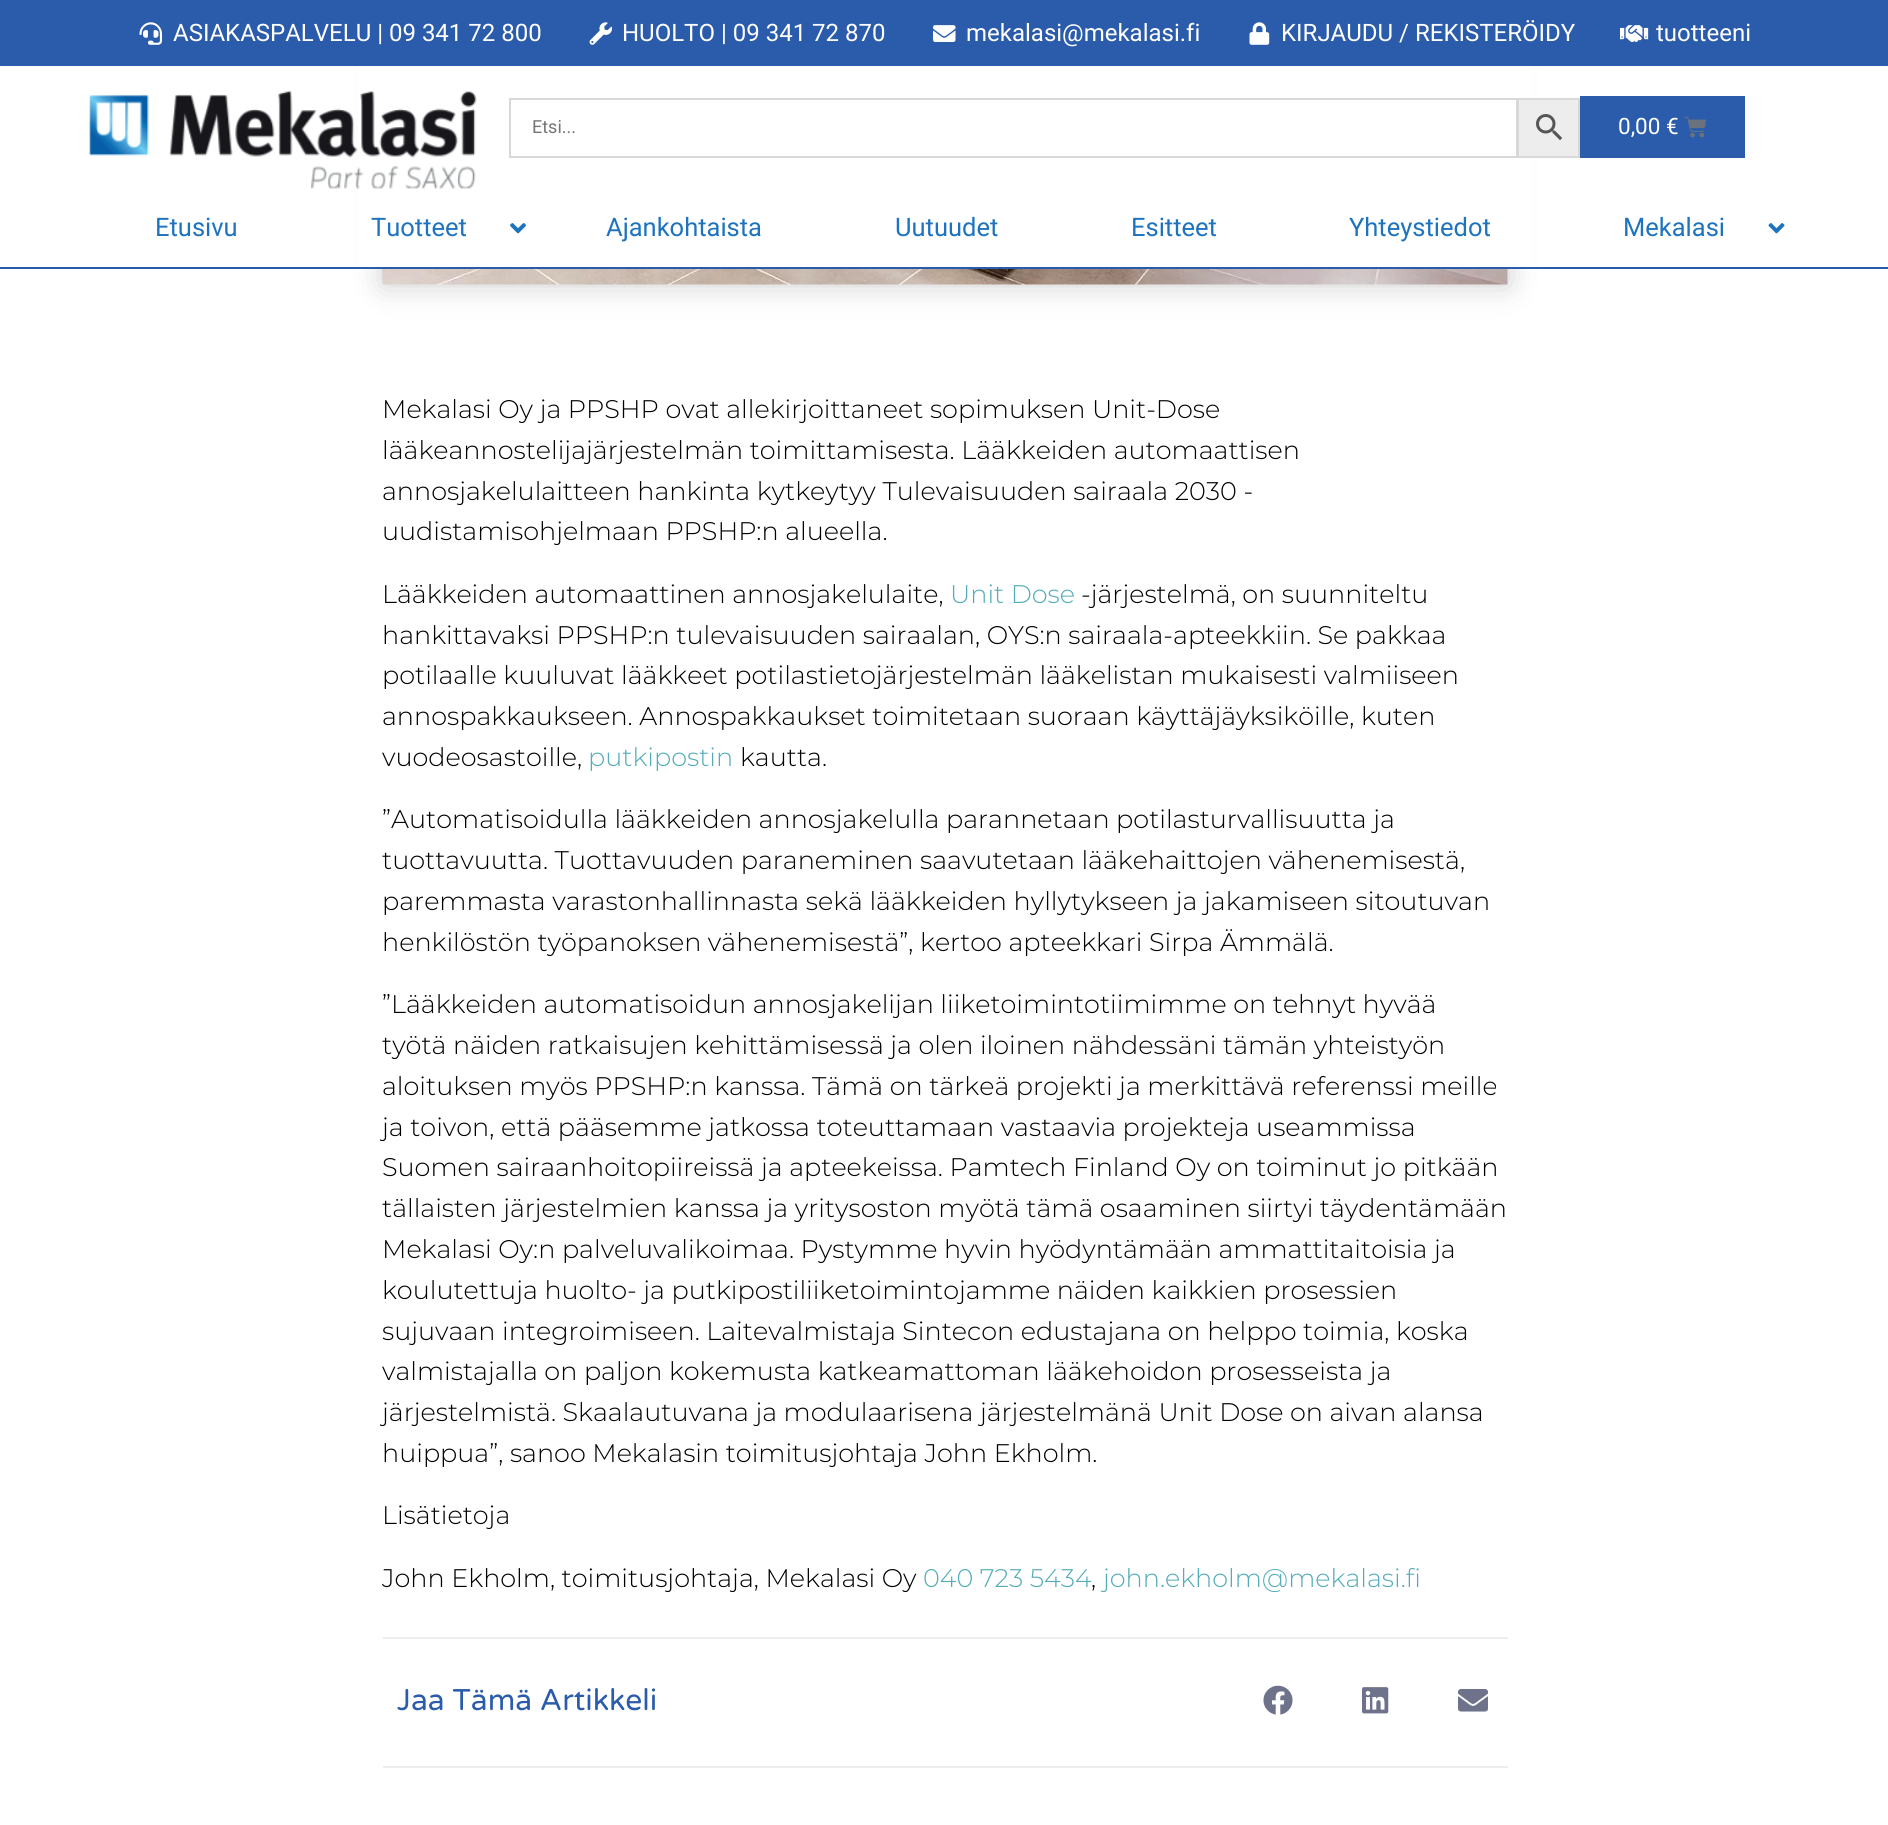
#include <cairo.h>
#include <math.h>
#include <stddef.h>

typedef struct { double x, y; const char *s; } line_t;

static void ink(cairo_t *ctx, unsigned color) {
    cairo_set_source_rgb(ctx, (color >> 16) / 255.0, (color >> 8 & 255) / 255.0, (color & 255) / 255.0);
}

static void round_path(cairo_t *ctx, double x, double y, double w, double h, double r) {
    cairo_new_sub_path(ctx);
    cairo_arc(ctx, x + w - r, y + h - r, r, 0, M_PI / 2);
    cairo_arc(ctx, x + r, y + h - r, r, M_PI / 2, M_PI);
    cairo_arc(ctx, x + r, y + r, r, M_PI, 1.5 * M_PI);
    cairo_arc(ctx, x + w - r, y + r, r, 1.5 * M_PI, 2 * M_PI);
    cairo_close_path(ctx);
}

static void blur_box(cairo_t *ctx, double x, double y, double w, double h, double r, double blur, double alpha) {
    cairo_push_group_with_content(ctx, CAIRO_CONTENT_ALPHA);
    cairo_set_operator(ctx, CAIRO_OPERATOR_SOURCE);
    for (int i = 15; i >= -15 && fmin(w, h) + blur * i / 3 > 0; i -= 2) {
        double e = blur * i / 6;
        cairo_set_source_rgba(ctx, 0, 0, 0, alpha * erfc((i - 1) / 8.5) / 2);
        round_path(ctx, x - e, y - e, w + 2 * e, h + 2 * e, fmax(0, fmin(r + e + blur * .6, fmin(w, h) / 2 + e)));
        cairo_fill(ctx);
    }
    cairo_pattern_t *soft = cairo_pop_group(ctx);
    cairo_mask(ctx, soft);
    cairo_pattern_destroy(soft);
}

static void paste(cairo_t *ctx, const char *path, double x, double y, double w, double h) {
    cairo_surface_t *image = cairo_image_surface_create_from_png(path);
    cairo_save(ctx);
    cairo_set_source_surface(ctx, image, x, y);
    cairo_rectangle(ctx, x, y, w, h);
    cairo_fill(ctx);
    cairo_restore(ctx);
    cairo_surface_destroy(image);
}

int main(void) {
    cairo_surface_t *surface = cairo_image_surface_create(CAIRO_FORMAT_RGB24, 1888, 1825);
    cairo_t *ctx = cairo_create(surface);
    cairo_font_options_t *options = cairo_font_options_create();
    cairo_font_options_set_hint_metrics(options, CAIRO_HINT_METRICS_OFF);
    cairo_font_options_set_hint_style(options, CAIRO_HINT_STYLE_NONE);
    cairo_set_font_options(ctx, options);
    cairo_set_miter_limit(ctx, 4);
    ink(ctx, 0xFFFFFF);
    cairo_paint(ctx);
    ink(ctx, 0x000000);
    blur_box(ctx, 383, -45, 1125, 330, 0, 15, 0.2);
    ink(ctx, 0x2B5CAB);
    cairo_rectangle(ctx, 0, 0, 1888, 66);
    cairo_fill(ctx);
    paste(ctx, "media/1.png", 139, 22, 23, 23);
    cairo_select_font_face(ctx, "Roboto", CAIRO_FONT_SLANT_NORMAL, CAIRO_FONT_WEIGHT_NORMAL);
    cairo_set_font_size(ctx, 24);
    ink(ctx, 0xFFFFFF);
    cairo_move_to(ctx, 173, 41);
    cairo_show_text(ctx, "ASIAKASPALVELU | 09 341 72 800");
    paste(ctx, "media/2.png", 589, 22, 24, 23);
    cairo_move_to(ctx, 622, 41);
    cairo_show_text(ctx, "HUOLTO | 09 341 72 870");
    paste(ctx, "media/3.png", 933, 25, 23, 17);
    cairo_move_to(ctx, 966, 41);
    cairo_show_text(ctx, "mekalasi@mekalasi.fi");
    paste(ctx, "media/4.png", 1249, 22, 21, 23);
    cairo_move_to(ctx, 1281, 41);
    cairo_show_text(ctx, "KIRJAUDU / REKISTERÖIDY");
    paste(ctx, "media/5.png", 1620, 25, 29, 17);
    cairo_move_to(ctx, 1656, 41);
    cairo_show_text(ctx, "tuotteeni");
    cairo_rectangle(ctx, 358, 66, 1175, 201);
    cairo_fill(ctx);
    ink(ctx, 0x2B5CAB);
    cairo_rectangle(ctx, 0, 267, 1888, 2);
    cairo_fill(ctx);
    paste(ctx, "media/6.png", 89, 90, 388, 99);
    ink(ctx, 0xEDEDED);
    cairo_rectangle(ctx, 1518, 99, 61, 58);
    cairo_fill_preserve(ctx);
    ink(ctx, 0xD8D8D8);
    cairo_stroke(ctx);
    cairo_rectangle(ctx, 510, 99, 1007, 58);
    cairo_stroke(ctx);
    cairo_set_font_size(ctx, 18);
    ink(ctx, 0x757575);
    cairo_move_to(ctx, 532, 133);
    cairo_show_text(ctx, "Etsi...");
    paste(ctx, "media/7.png", 1536, 114, 27, 27);
    ink(ctx, 0x2B5CAB);
    cairo_rectangle(ctx, 1580, 96, 165, 62);
    cairo_fill(ctx);
    cairo_set_font_size(ctx, 22.5);
    ink(ctx, 0xFFFFFF);
    cairo_move_to(ctx, 1618, 134);
    cairo_show_text(ctx, "0,00 €");
    paste(ctx, "media/8.png", 1684, 116, 22, 22);
    cairo_set_font_size(ctx, 25.5);
    ink(ctx, 0x1E73BE);
    cairo_move_to(ctx, 155, 236);
    cairo_show_text(ctx, "Etusivu");
    cairo_move_to(ctx, 371, 236);
    cairo_show_text(ctx, "Tuotteet");
    paste(ctx, "media/9.png", 510, 223, 16, 11);
    {
        static const line_t items[] = {
            {606, 236, "Ajankohtaista"},
            {895, 236, "Uutuudet"},
            {1131, 236, "Esitteet"},
            {1349, 236, "Yhteystiedot"},
            {1623, 236, "Mekalasi"},
        };
        for (size_t i = 0; i < sizeof items / sizeof *items; i++) {
            cairo_move_to(ctx, items[i].x, items[i].y);
            cairo_show_text(ctx, items[i].s);
        }
    }
    paste(ctx, "media/10.png", 1768, 223, 17, 11);
    paste(ctx, "media/11.png", 382, 269, 1126, 16);
    cairo_select_font_face(ctx, "Montserrat Light", CAIRO_FONT_SLANT_NORMAL, CAIRO_FONT_WEIGHT_NORMAL);
    ink(ctx, 0x000000);
    {
        static const line_t items[] = {
            {382, 418, "Mekalasi Oy ja PPSHP ovat allekirjoittaneet sopimuksen Unit-Dose"},
            {382, 459, "lääkeannostelijajärjestelmän toimittamisesta. Lääkkeiden automaattisen"},
            {382, 500, "annosjakelulaitteen hankinta kytkeytyy Tulevaisuuden sairaala 2030 -"},
            {382, 540, "uudistamisohjelmaan PPSHP:n alueella."},
            {382, 603, "Lääkkeiden automaattinen annosjakelulaite,"},
        };
        for (size_t i = 0; i < sizeof items / sizeof *items; i++) {
            cairo_move_to(ctx, items[i].x, items[i].y);
            cairo_show_text(ctx, items[i].s);
        }
    }
    ink(ctx, 0x53ACB8);
    cairo_move_to(ctx, 950, 603);
    cairo_show_text(ctx, "Unit Dose");
    ink(ctx, 0x000000);
    {
        static const line_t items[] = {
            {1081, 603, "-järjestelmä, on suunniteltu"},
            {382, 644, "hankittavaksi PPSHP:n tulevaisuuden sairaalan, OYS:n sairaala-apteekkiin. Se pakkaa"},
            {382, 684, "potilaalle kuuluvat lääkkeet potilastietojärjestelmän lääkelistan mukaisesti valmiiseen"},
            {382, 725, "annospakkaukseen. Annospakkaukset toimitetaan suoraan käyttäjäyksiköille, kuten"},
            {382, 766, "vuodeosastoille,"},
        };
        for (size_t i = 0; i < sizeof items / sizeof *items; i++) {
            cairo_move_to(ctx, items[i].x, items[i].y);
            cairo_show_text(ctx, items[i].s);
        }
    }
    ink(ctx, 0x53ACB8);
    cairo_move_to(ctx, 588, 766);
    cairo_show_text(ctx, "putkipostin");
    ink(ctx, 0x000000);
    {
        static const line_t items[] = {
            {740, 766, "kautta."},
            {382, 828, "”Automatisoidulla lääkkeiden annosjakelulla parannetaan potilasturvallisuutta ja"},
            {382, 869, "tuottavuutta. Tuottavuuden paraneminen saavutetaan lääkehaittojen vähenemisestä,"},
            {382, 910, "paremmasta varastonhallinnasta sekä lääkkeiden hyllytykseen ja jakamiseen sitoutuvan"},
            {382, 951, "henkilöstön työpanoksen vähenemisestä”, kertoo apteekkari Sirpa Ämmälä."},
            {382, 1013, "”Lääkkeiden automatisoidun annosjakelijan liiketoimintotiimimme on tehnyt hyvää"},
            {382, 1054, "työtä näiden ratkaisujen kehittämisessä ja olen iloinen nähdessäni tämän yhteistyön"},
            {382, 1095, "aloituksen myös PPSHP:n kanssa. Tämä on tärkeä projekti ja merkittävä referenssi meille"},
            {382, 1136, "ja toivon, että pääsemme jatkossa toteuttamaan vastaavia projekteja useammissa"},
            {382, 1176, "Suomen sairaanhoitopiireissä ja apteekeissa. Pamtech Finland Oy on toiminut jo pitkään"},
            {382, 1217, "tällaisten järjestelmien kanssa ja yritysoston myötä tämä osaaminen siirtyi täydentämään"},
            {382, 1258, "Mekalasi Oy:n palveluvalikoimaa. Pystymme hyvin hyödyntämään ammattitaitoisia ja"},
            {382, 1299, "koulutettuja huolto- ja putkipostiliiketoimintojamme näiden kaikkien prosessien"},
            {382, 1340, "sujuvaan integroimiseen. Laitevalmistaja Sintecon edustajana on helppo toimia, koska"},
            {382, 1380, "valmistajalla on paljon kokemusta katkeamattoman lääkehoidon prosesseista ja"},
            {382, 1421, "järjestelmistä. Skaalautuvana ja modulaarisena järjestelmänä Unit Dose on aivan alansa"},
            {382, 1462, "huippua”, sanoo Mekalasin toimitusjohtaja John Ekholm."},
            {382, 1524, "Lisätietoja"},
            {382, 1587, "John Ekholm, toimitusjohtaja, Mekalasi Oy"},
        };
        for (size_t i = 0; i < sizeof items / sizeof *items; i++) {
            cairo_move_to(ctx, items[i].x, items[i].y);
            cairo_show_text(ctx, items[i].s);
        }
    }
    ink(ctx, 0x53ACB8);
    cairo_move_to(ctx, 923, 1587);
    cairo_show_text(ctx, "040 723 5434");
    ink(ctx, 0x000000);
    cairo_move_to(ctx, 1091, 1587);
    cairo_show_text(ctx, ",");
    ink(ctx, 0x53ACB8);
    cairo_move_to(ctx, 1103, 1587);
    cairo_show_text(ctx, "john.ekholm@mekalasi.fi");
    ink(ctx, 0xECEDEF);
    cairo_rectangle(ctx, 383, 1637, 1125, 2);
    cairo_fill(ctx);
    cairo_rectangle(ctx, 383, 1766, 1125, 2);
    cairo_fill(ctx);
    cairo_select_font_face(ctx, "Varela Round", CAIRO_FONT_SLANT_NORMAL, CAIRO_FONT_WEIGHT_NORMAL);
    cairo_set_font_size(ctx, 30);
    ink(ctx, 0x2B5CAB);
    cairo_move_to(ctx, 397, 1710);
    cairo_show_text(ctx, "Jaa Tämä Artikkeli");
    paste(ctx, "media/12.png", 1263, 1685, 30, 30);
    paste(ctx, "media/13.png", 1362, 1687, 27, 27);
    paste(ctx, "media/14.png", 1458, 1689, 30, 23);
    cairo_surface_write_to_png(surface, "image.png");
    cairo_font_options_destroy(options);
    cairo_destroy(ctx);
    cairo_surface_destroy(surface);
    return 0;
}
